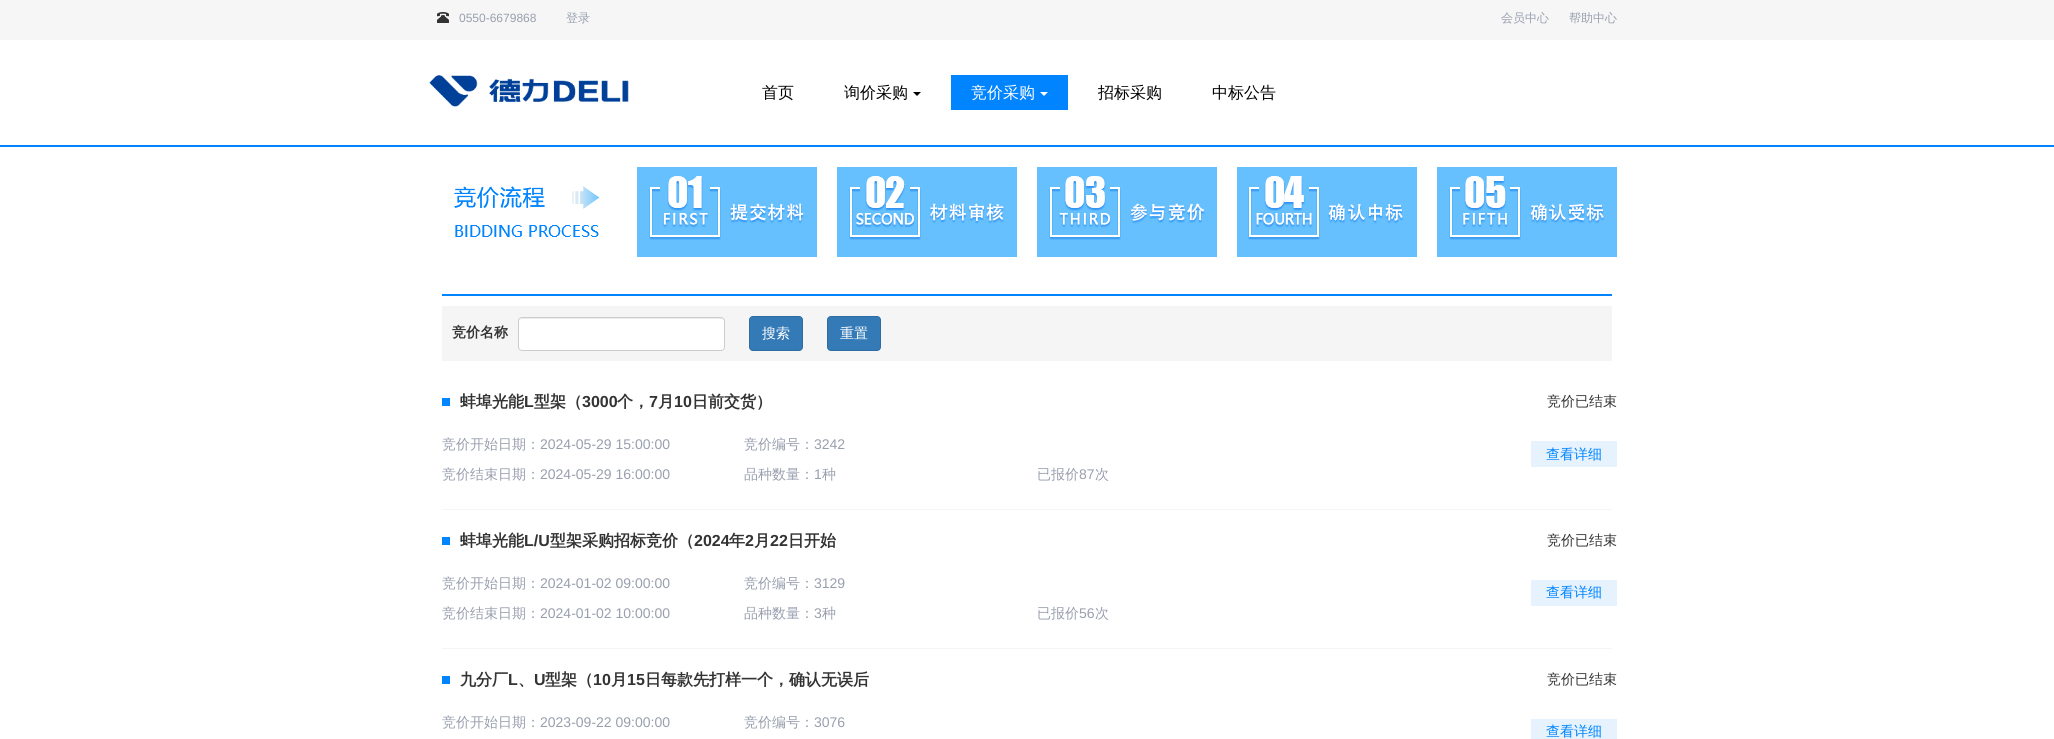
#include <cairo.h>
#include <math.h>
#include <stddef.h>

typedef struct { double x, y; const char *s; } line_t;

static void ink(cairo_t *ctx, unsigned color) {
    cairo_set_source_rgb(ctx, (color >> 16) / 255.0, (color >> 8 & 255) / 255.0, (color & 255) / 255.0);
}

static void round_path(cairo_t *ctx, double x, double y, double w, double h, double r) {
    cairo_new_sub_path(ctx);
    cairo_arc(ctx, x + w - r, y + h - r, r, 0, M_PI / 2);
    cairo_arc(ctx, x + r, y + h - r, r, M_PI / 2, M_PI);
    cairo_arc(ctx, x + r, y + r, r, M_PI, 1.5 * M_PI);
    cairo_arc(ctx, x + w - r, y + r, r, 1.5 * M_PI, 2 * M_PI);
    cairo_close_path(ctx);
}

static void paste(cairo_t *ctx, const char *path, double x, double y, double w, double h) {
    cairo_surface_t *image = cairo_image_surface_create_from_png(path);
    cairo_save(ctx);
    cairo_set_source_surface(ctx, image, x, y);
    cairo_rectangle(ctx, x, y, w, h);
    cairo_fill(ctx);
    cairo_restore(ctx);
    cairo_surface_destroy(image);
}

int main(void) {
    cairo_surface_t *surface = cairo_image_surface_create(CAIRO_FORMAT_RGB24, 2054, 739);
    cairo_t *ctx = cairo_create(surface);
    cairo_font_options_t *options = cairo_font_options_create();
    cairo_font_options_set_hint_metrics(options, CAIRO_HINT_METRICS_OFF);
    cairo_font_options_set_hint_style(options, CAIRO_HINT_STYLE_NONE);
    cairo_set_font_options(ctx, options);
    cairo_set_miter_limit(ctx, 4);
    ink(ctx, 0xFFFFFF);
    cairo_paint(ctx);
    ink(ctx, 0xF6F6F6);
    cairo_rectangle(ctx, 0, 0, 2054, 40);
    cairo_fill(ctx);
    paste(ctx, "media/1.png", 437, 12, 12, 11);
    cairo_select_font_face(ctx, "Liberation Sans", CAIRO_FONT_SLANT_NORMAL, CAIRO_FONT_WEIGHT_NORMAL);
    cairo_set_font_size(ctx, 12);
    ink(ctx, 0x989FAE);
    cairo_move_to(ctx, 459, 22);
    cairo_show_text(ctx, "0550-6679868");
    cairo_select_font_face(ctx, "WenQuanYi Zen Hei Medium", CAIRO_FONT_SLANT_NORMAL, CAIRO_FONT_WEIGHT_NORMAL);
    {
        static const line_t items[] = {
            {566, 22, "登录"},
            {1501, 22, "会员中心"},
            {1569, 22, "帮助中心"},
        };
        for (size_t i = 0; i < sizeof items / sizeof *items; i++) {
            cairo_move_to(ctx, items[i].x, items[i].y);
            cairo_show_text(ctx, items[i].s);
        }
    }
    ink(ctx, 0x0084FF);
    cairo_rectangle(ctx, 0, 145, 2054, 2);
    cairo_fill(ctx);
    paste(ctx, "media/2.png", 429, 75, 200, 32);
    cairo_set_font_size(ctx, 16);
    ink(ctx, 0x000000);
    cairo_move_to(ctx, 762, 98);
    cairo_show_text(ctx, "首页");
    cairo_move_to(ctx, 844, 98);
    cairo_show_text(ctx, "询价采购");
    cairo_new_path(ctx);
    cairo_move_to(ctx, 913, 92);
    cairo_line_to(ctx, 921, 92);
    cairo_line_to(ctx, 917, 96);
    cairo_close_path(ctx);
    cairo_fill(ctx);
    ink(ctx, 0x0084FF);
    cairo_rectangle(ctx, 951, 75, 117, 35);
    cairo_fill(ctx);
    ink(ctx, 0xFFFFFF);
    cairo_move_to(ctx, 971, 98);
    cairo_show_text(ctx, "竞价采购");
    cairo_new_path(ctx);
    cairo_move_to(ctx, 1040, 92);
    cairo_line_to(ctx, 1048, 92);
    cairo_line_to(ctx, 1044, 96);
    cairo_close_path(ctx);
    cairo_fill(ctx);
    ink(ctx, 0x000000);
    cairo_move_to(ctx, 1098, 98);
    cairo_show_text(ctx, "招标采购");
    cairo_move_to(ctx, 1212, 98);
    cairo_show_text(ctx, "中标公告");
    paste(ctx, "media/3.png", 454, 186, 145, 51);
    paste(ctx, "media/4.png", 637, 167, 180, 90);
    paste(ctx, "media/5.png", 837, 167, 180, 90);
    paste(ctx, "media/6.png", 1037, 167, 180, 90);
    paste(ctx, "media/7.png", 1237, 167, 180, 90);
    paste(ctx, "media/8.png", 1437, 167, 180, 90);
    ink(ctx, 0x0084FF);
    cairo_rectangle(ctx, 442, 294, 1170, 2);
    cairo_fill(ctx);
    ink(ctx, 0xF5F5F5);
    cairo_rectangle(ctx, 442, 306, 1170, 55);
    cairo_fill(ctx);
    cairo_select_font_face(ctx, "WenQuanYi Zen Hei", CAIRO_FONT_SLANT_NORMAL, CAIRO_FONT_WEIGHT_BOLD);
    cairo_set_font_size(ctx, 14);
    ink(ctx, 0x333333);
    cairo_move_to(ctx, 452, 337);
    cairo_show_text(ctx, "竞价名称");
    ink(ctx, 0xFFFFFF);
    round_path(ctx, 518, 317, 207, 34, 4);
    cairo_fill(ctx);
    ink(ctx, 0xECECEC);
    cairo_new_path(ctx);
    cairo_move_to(ctx, 522, 319);
    cairo_line_to(ctx, 721, 319);
    cairo_curve_to(ctx, 723, 319, 724, 320, 724, 322);
    cairo_curve_to(ctx, 724, 320, 723, 318, 721, 318);
    cairo_line_to(ctx, 522, 318);
    cairo_curve_to(ctx, 520, 318, 519, 320, 519, 322);
    cairo_curve_to(ctx, 519, 320, 520, 319, 522, 319);
    cairo_close_path(ctx);
    cairo_fill(ctx);
    round_path(ctx, 518.5, 317.5, 206, 33, 3.5);
    ink(ctx, 0xCCCCCC);
    cairo_set_line_width(ctx, 1);
    cairo_stroke(ctx);
    ink(ctx, 0x337AB7);
    round_path(ctx, 749.5, 316.5, 53, 34, 3.5);
    cairo_fill_preserve(ctx);
    ink(ctx, 0x2E6DA4);
    cairo_stroke(ctx);
    cairo_select_font_face(ctx, "WenQuanYi Zen Hei Medium", CAIRO_FONT_SLANT_NORMAL, CAIRO_FONT_WEIGHT_NORMAL);
    ink(ctx, 0xFFFFFF);
    cairo_move_to(ctx, 762, 338);
    cairo_show_text(ctx, "搜索");
    ink(ctx, 0x337AB7);
    round_path(ctx, 827.5, 316.5, 53, 34, 3.5);
    cairo_fill_preserve(ctx);
    ink(ctx, 0x2E6DA4);
    cairo_stroke(ctx);
    ink(ctx, 0xFFFFFF);
    cairo_move_to(ctx, 840, 338);
    cairo_show_text(ctx, "重置");
    ink(ctx, 0xF5F5F5);
    cairo_rectangle(ctx, 442, 509, 1170, 1);
    cairo_fill(ctx);
    ink(ctx, 0x0084FF);
    cairo_rectangle(ctx, 442, 398, 8, 8);
    cairo_fill(ctx);
    cairo_select_font_face(ctx, "WenQuanYi Zen Hei", CAIRO_FONT_SLANT_NORMAL, CAIRO_FONT_WEIGHT_BOLD);
    cairo_set_font_size(ctx, 16);
    ink(ctx, 0x333333);
    cairo_move_to(ctx, 460, 407);
    cairo_show_text(ctx, "蚌埠光能");
    cairo_select_font_face(ctx, "Liberation Sans", CAIRO_FONT_SLANT_NORMAL, CAIRO_FONT_WEIGHT_BOLD);
    cairo_move_to(ctx, 524, 407);
    cairo_show_text(ctx, "L");
    cairo_select_font_face(ctx, "WenQuanYi Zen Hei", CAIRO_FONT_SLANT_NORMAL, CAIRO_FONT_WEIGHT_BOLD);
    cairo_move_to(ctx, 534, 407);
    cairo_show_text(ctx, "型架（");
    cairo_select_font_face(ctx, "Liberation Sans", CAIRO_FONT_SLANT_NORMAL, CAIRO_FONT_WEIGHT_BOLD);
    cairo_move_to(ctx, 582, 407);
    cairo_show_text(ctx, "3000");
    cairo_select_font_face(ctx, "WenQuanYi Zen Hei", CAIRO_FONT_SLANT_NORMAL, CAIRO_FONT_WEIGHT_BOLD);
    cairo_move_to(ctx, 617, 407);
    cairo_show_text(ctx, "个，");
    cairo_select_font_face(ctx, "Liberation Sans", CAIRO_FONT_SLANT_NORMAL, CAIRO_FONT_WEIGHT_BOLD);
    cairo_move_to(ctx, 649, 407);
    cairo_show_text(ctx, "7");
    cairo_select_font_face(ctx, "WenQuanYi Zen Hei", CAIRO_FONT_SLANT_NORMAL, CAIRO_FONT_WEIGHT_BOLD);
    cairo_move_to(ctx, 658, 407);
    cairo_show_text(ctx, "月");
    cairo_select_font_face(ctx, "Liberation Sans", CAIRO_FONT_SLANT_NORMAL, CAIRO_FONT_WEIGHT_BOLD);
    cairo_move_to(ctx, 674, 407);
    cairo_show_text(ctx, "10");
    cairo_select_font_face(ctx, "WenQuanYi Zen Hei", CAIRO_FONT_SLANT_NORMAL, CAIRO_FONT_WEIGHT_BOLD);
    cairo_move_to(ctx, 692, 407);
    cairo_show_text(ctx, "日前交货）");
    cairo_select_font_face(ctx, "WenQuanYi Zen Hei Medium", CAIRO_FONT_SLANT_NORMAL, CAIRO_FONT_WEIGHT_NORMAL);
    cairo_set_font_size(ctx, 14);
    cairo_move_to(ctx, 1547, 406);
    cairo_show_text(ctx, "竞价已结束");
    ink(ctx, 0xE6F3FF);
    cairo_rectangle(ctx, 1531, 441, 86, 26);
    cairo_fill(ctx);
    ink(ctx, 0x0084FF);
    cairo_move_to(ctx, 1546, 459);
    cairo_show_text(ctx, "查看详细");
    ink(ctx, 0x989FAE);
    cairo_move_to(ctx, 442, 449);
    cairo_show_text(ctx, "竞价开始日期：");
    cairo_select_font_face(ctx, "Liberation Sans", CAIRO_FONT_SLANT_NORMAL, CAIRO_FONT_WEIGHT_NORMAL);
    cairo_move_to(ctx, 540, 449);
    cairo_show_text(ctx, "2024-05-29 15:00:00");
    cairo_select_font_face(ctx, "WenQuanYi Zen Hei Medium", CAIRO_FONT_SLANT_NORMAL, CAIRO_FONT_WEIGHT_NORMAL);
    cairo_move_to(ctx, 442, 479);
    cairo_show_text(ctx, "竞价结束日期：");
    cairo_select_font_face(ctx, "Liberation Sans", CAIRO_FONT_SLANT_NORMAL, CAIRO_FONT_WEIGHT_NORMAL);
    cairo_move_to(ctx, 540, 479);
    cairo_show_text(ctx, "2024-05-29 16:00:00");
    cairo_select_font_face(ctx, "WenQuanYi Zen Hei Medium", CAIRO_FONT_SLANT_NORMAL, CAIRO_FONT_WEIGHT_NORMAL);
    cairo_move_to(ctx, 744, 449);
    cairo_show_text(ctx, "竞价编号：");
    cairo_select_font_face(ctx, "Liberation Sans", CAIRO_FONT_SLANT_NORMAL, CAIRO_FONT_WEIGHT_NORMAL);
    cairo_move_to(ctx, 814, 449);
    cairo_show_text(ctx, "3242");
    cairo_select_font_face(ctx, "WenQuanYi Zen Hei Medium", CAIRO_FONT_SLANT_NORMAL, CAIRO_FONT_WEIGHT_NORMAL);
    cairo_move_to(ctx, 744, 479);
    cairo_show_text(ctx, "品种数量：");
    cairo_select_font_face(ctx, "Liberation Sans", CAIRO_FONT_SLANT_NORMAL, CAIRO_FONT_WEIGHT_NORMAL);
    cairo_move_to(ctx, 814, 479);
    cairo_show_text(ctx, "1");
    cairo_select_font_face(ctx, "WenQuanYi Zen Hei Medium", CAIRO_FONT_SLANT_NORMAL, CAIRO_FONT_WEIGHT_NORMAL);
    cairo_move_to(ctx, 822, 479);
    cairo_show_text(ctx, "种");
    cairo_move_to(ctx, 1037, 479);
    cairo_show_text(ctx, "已报价");
    cairo_select_font_face(ctx, "Liberation Sans", CAIRO_FONT_SLANT_NORMAL, CAIRO_FONT_WEIGHT_NORMAL);
    cairo_move_to(ctx, 1079, 479);
    cairo_show_text(ctx, "87");
    cairo_select_font_face(ctx, "WenQuanYi Zen Hei Medium", CAIRO_FONT_SLANT_NORMAL, CAIRO_FONT_WEIGHT_NORMAL);
    cairo_move_to(ctx, 1095, 479);
    cairo_show_text(ctx, "次");
    ink(ctx, 0xF5F5F5);
    cairo_rectangle(ctx, 442, 648, 1170, 1);
    cairo_fill(ctx);
    ink(ctx, 0x0084FF);
    cairo_rectangle(ctx, 442, 537, 8, 8);
    cairo_fill(ctx);
    cairo_select_font_face(ctx, "WenQuanYi Zen Hei", CAIRO_FONT_SLANT_NORMAL, CAIRO_FONT_WEIGHT_BOLD);
    cairo_set_font_size(ctx, 16);
    ink(ctx, 0x333333);
    cairo_move_to(ctx, 460, 546);
    cairo_show_text(ctx, "蚌埠光能");
    cairo_select_font_face(ctx, "Liberation Sans", CAIRO_FONT_SLANT_NORMAL, CAIRO_FONT_WEIGHT_BOLD);
    cairo_move_to(ctx, 524, 546);
    cairo_show_text(ctx, "L/U");
    cairo_select_font_face(ctx, "WenQuanYi Zen Hei", CAIRO_FONT_SLANT_NORMAL, CAIRO_FONT_WEIGHT_BOLD);
    cairo_move_to(ctx, 550, 546);
    cairo_show_text(ctx, "型架采购招标竞价（");
    cairo_select_font_face(ctx, "Liberation Sans", CAIRO_FONT_SLANT_NORMAL, CAIRO_FONT_WEIGHT_BOLD);
    cairo_move_to(ctx, 694, 546);
    cairo_show_text(ctx, "2024");
    cairo_select_font_face(ctx, "WenQuanYi Zen Hei", CAIRO_FONT_SLANT_NORMAL, CAIRO_FONT_WEIGHT_BOLD);
    cairo_move_to(ctx, 729, 546);
    cairo_show_text(ctx, "年");
    cairo_select_font_face(ctx, "Liberation Sans", CAIRO_FONT_SLANT_NORMAL, CAIRO_FONT_WEIGHT_BOLD);
    cairo_move_to(ctx, 745, 546);
    cairo_show_text(ctx, "2");
    cairo_select_font_face(ctx, "WenQuanYi Zen Hei", CAIRO_FONT_SLANT_NORMAL, CAIRO_FONT_WEIGHT_BOLD);
    cairo_move_to(ctx, 754, 546);
    cairo_show_text(ctx, "月");
    cairo_select_font_face(ctx, "Liberation Sans", CAIRO_FONT_SLANT_NORMAL, CAIRO_FONT_WEIGHT_BOLD);
    cairo_move_to(ctx, 770, 546);
    cairo_show_text(ctx, "22");
    cairo_select_font_face(ctx, "WenQuanYi Zen Hei", CAIRO_FONT_SLANT_NORMAL, CAIRO_FONT_WEIGHT_BOLD);
    cairo_move_to(ctx, 788, 546);
    cairo_show_text(ctx, "日开始");
    cairo_select_font_face(ctx, "WenQuanYi Zen Hei Medium", CAIRO_FONT_SLANT_NORMAL, CAIRO_FONT_WEIGHT_NORMAL);
    cairo_set_font_size(ctx, 14);
    cairo_move_to(ctx, 1547, 545);
    cairo_show_text(ctx, "竞价已结束");
    ink(ctx, 0xE6F3FF);
    cairo_rectangle(ctx, 1531, 580, 86, 26);
    cairo_fill(ctx);
    ink(ctx, 0x0084FF);
    cairo_move_to(ctx, 1546, 597);
    cairo_show_text(ctx, "查看详细");
    ink(ctx, 0x989FAE);
    cairo_move_to(ctx, 442, 588);
    cairo_show_text(ctx, "竞价开始日期：");
    cairo_select_font_face(ctx, "Liberation Sans", CAIRO_FONT_SLANT_NORMAL, CAIRO_FONT_WEIGHT_NORMAL);
    cairo_move_to(ctx, 540, 588);
    cairo_show_text(ctx, "2024-01-02 09:00:00");
    cairo_select_font_face(ctx, "WenQuanYi Zen Hei Medium", CAIRO_FONT_SLANT_NORMAL, CAIRO_FONT_WEIGHT_NORMAL);
    cairo_move_to(ctx, 442, 618);
    cairo_show_text(ctx, "竞价结束日期：");
    cairo_select_font_face(ctx, "Liberation Sans", CAIRO_FONT_SLANT_NORMAL, CAIRO_FONT_WEIGHT_NORMAL);
    cairo_move_to(ctx, 540, 618);
    cairo_show_text(ctx, "2024-01-02 10:00:00");
    cairo_select_font_face(ctx, "WenQuanYi Zen Hei Medium", CAIRO_FONT_SLANT_NORMAL, CAIRO_FONT_WEIGHT_NORMAL);
    cairo_move_to(ctx, 744, 588);
    cairo_show_text(ctx, "竞价编号：");
    cairo_select_font_face(ctx, "Liberation Sans", CAIRO_FONT_SLANT_NORMAL, CAIRO_FONT_WEIGHT_NORMAL);
    cairo_move_to(ctx, 814, 588);
    cairo_show_text(ctx, "3129");
    cairo_select_font_face(ctx, "WenQuanYi Zen Hei Medium", CAIRO_FONT_SLANT_NORMAL, CAIRO_FONT_WEIGHT_NORMAL);
    cairo_move_to(ctx, 744, 618);
    cairo_show_text(ctx, "品种数量：");
    cairo_select_font_face(ctx, "Liberation Sans", CAIRO_FONT_SLANT_NORMAL, CAIRO_FONT_WEIGHT_NORMAL);
    cairo_move_to(ctx, 814, 618);
    cairo_show_text(ctx, "3");
    cairo_select_font_face(ctx, "WenQuanYi Zen Hei Medium", CAIRO_FONT_SLANT_NORMAL, CAIRO_FONT_WEIGHT_NORMAL);
    cairo_move_to(ctx, 822, 618);
    cairo_show_text(ctx, "种");
    cairo_move_to(ctx, 1037, 618);
    cairo_show_text(ctx, "已报价");
    cairo_select_font_face(ctx, "Liberation Sans", CAIRO_FONT_SLANT_NORMAL, CAIRO_FONT_WEIGHT_NORMAL);
    cairo_move_to(ctx, 1079, 618);
    cairo_show_text(ctx, "56");
    cairo_select_font_face(ctx, "WenQuanYi Zen Hei Medium", CAIRO_FONT_SLANT_NORMAL, CAIRO_FONT_WEIGHT_NORMAL);
    cairo_move_to(ctx, 1095, 618);
    cairo_show_text(ctx, "次");
    ink(ctx, 0x0084FF);
    cairo_rectangle(ctx, 442, 676, 8, 8);
    cairo_fill(ctx);
    cairo_select_font_face(ctx, "WenQuanYi Zen Hei", CAIRO_FONT_SLANT_NORMAL, CAIRO_FONT_WEIGHT_BOLD);
    cairo_set_font_size(ctx, 16);
    ink(ctx, 0x333333);
    cairo_move_to(ctx, 460, 685);
    cairo_show_text(ctx, "九分厂");
    cairo_select_font_face(ctx, "Liberation Sans", CAIRO_FONT_SLANT_NORMAL, CAIRO_FONT_WEIGHT_BOLD);
    cairo_move_to(ctx, 508, 685);
    cairo_show_text(ctx, "L");
    cairo_move_to(ctx, 534, 685);
    cairo_show_text(ctx, "U");
    cairo_select_font_face(ctx, "WenQuanYi Zen Hei", CAIRO_FONT_SLANT_NORMAL, CAIRO_FONT_WEIGHT_BOLD);
    cairo_move_to(ctx, 545, 685);
    cairo_show_text(ctx, "型架（");
    cairo_select_font_face(ctx, "Liberation Sans", CAIRO_FONT_SLANT_NORMAL, CAIRO_FONT_WEIGHT_BOLD);
    cairo_move_to(ctx, 593, 685);
    cairo_show_text(ctx, "10");
    cairo_select_font_face(ctx, "WenQuanYi Zen Hei", CAIRO_FONT_SLANT_NORMAL, CAIRO_FONT_WEIGHT_BOLD);
    cairo_move_to(ctx, 611, 685);
    cairo_show_text(ctx, "月");
    cairo_select_font_face(ctx, "Liberation Sans", CAIRO_FONT_SLANT_NORMAL, CAIRO_FONT_WEIGHT_BOLD);
    cairo_move_to(ctx, 627, 685);
    cairo_show_text(ctx, "15");
    cairo_select_font_face(ctx, "WenQuanYi Zen Hei", CAIRO_FONT_SLANT_NORMAL, CAIRO_FONT_WEIGHT_BOLD);
    cairo_move_to(ctx, 645, 685);
    cairo_show_text(ctx, "日每款先打样一个，确认无误后");
    cairo_move_to(ctx, 518, 685);
    cairo_show_text(ctx, "、");
    cairo_select_font_face(ctx, "WenQuanYi Zen Hei Medium", CAIRO_FONT_SLANT_NORMAL, CAIRO_FONT_WEIGHT_NORMAL);
    cairo_set_font_size(ctx, 14);
    cairo_move_to(ctx, 1547, 684);
    cairo_show_text(ctx, "竞价已结束");
    ink(ctx, 0xE6F3FF);
    cairo_rectangle(ctx, 1531, 719, 86, 20);
    cairo_fill(ctx);
    ink(ctx, 0x0084FF);
    cairo_move_to(ctx, 1546, 736);
    cairo_show_text(ctx, "查看详细");
    ink(ctx, 0x989FAE);
    cairo_move_to(ctx, 442, 727);
    cairo_show_text(ctx, "竞价开始日期：");
    cairo_select_font_face(ctx, "Liberation Sans", CAIRO_FONT_SLANT_NORMAL, CAIRO_FONT_WEIGHT_NORMAL);
    cairo_move_to(ctx, 540, 727);
    cairo_show_text(ctx, "2023-09-22 09:00:00");
    cairo_select_font_face(ctx, "WenQuanYi Zen Hei Medium", CAIRO_FONT_SLANT_NORMAL, CAIRO_FONT_WEIGHT_NORMAL);
    cairo_move_to(ctx, 744, 727);
    cairo_show_text(ctx, "竞价编号：");
    cairo_select_font_face(ctx, "Liberation Sans", CAIRO_FONT_SLANT_NORMAL, CAIRO_FONT_WEIGHT_NORMAL);
    cairo_move_to(ctx, 814, 727);
    cairo_show_text(ctx, "3076");
    cairo_surface_write_to_png(surface, "image.png");
    cairo_font_options_destroy(options);
    cairo_destroy(ctx);
    cairo_surface_destroy(surface);
    return 0;
}
